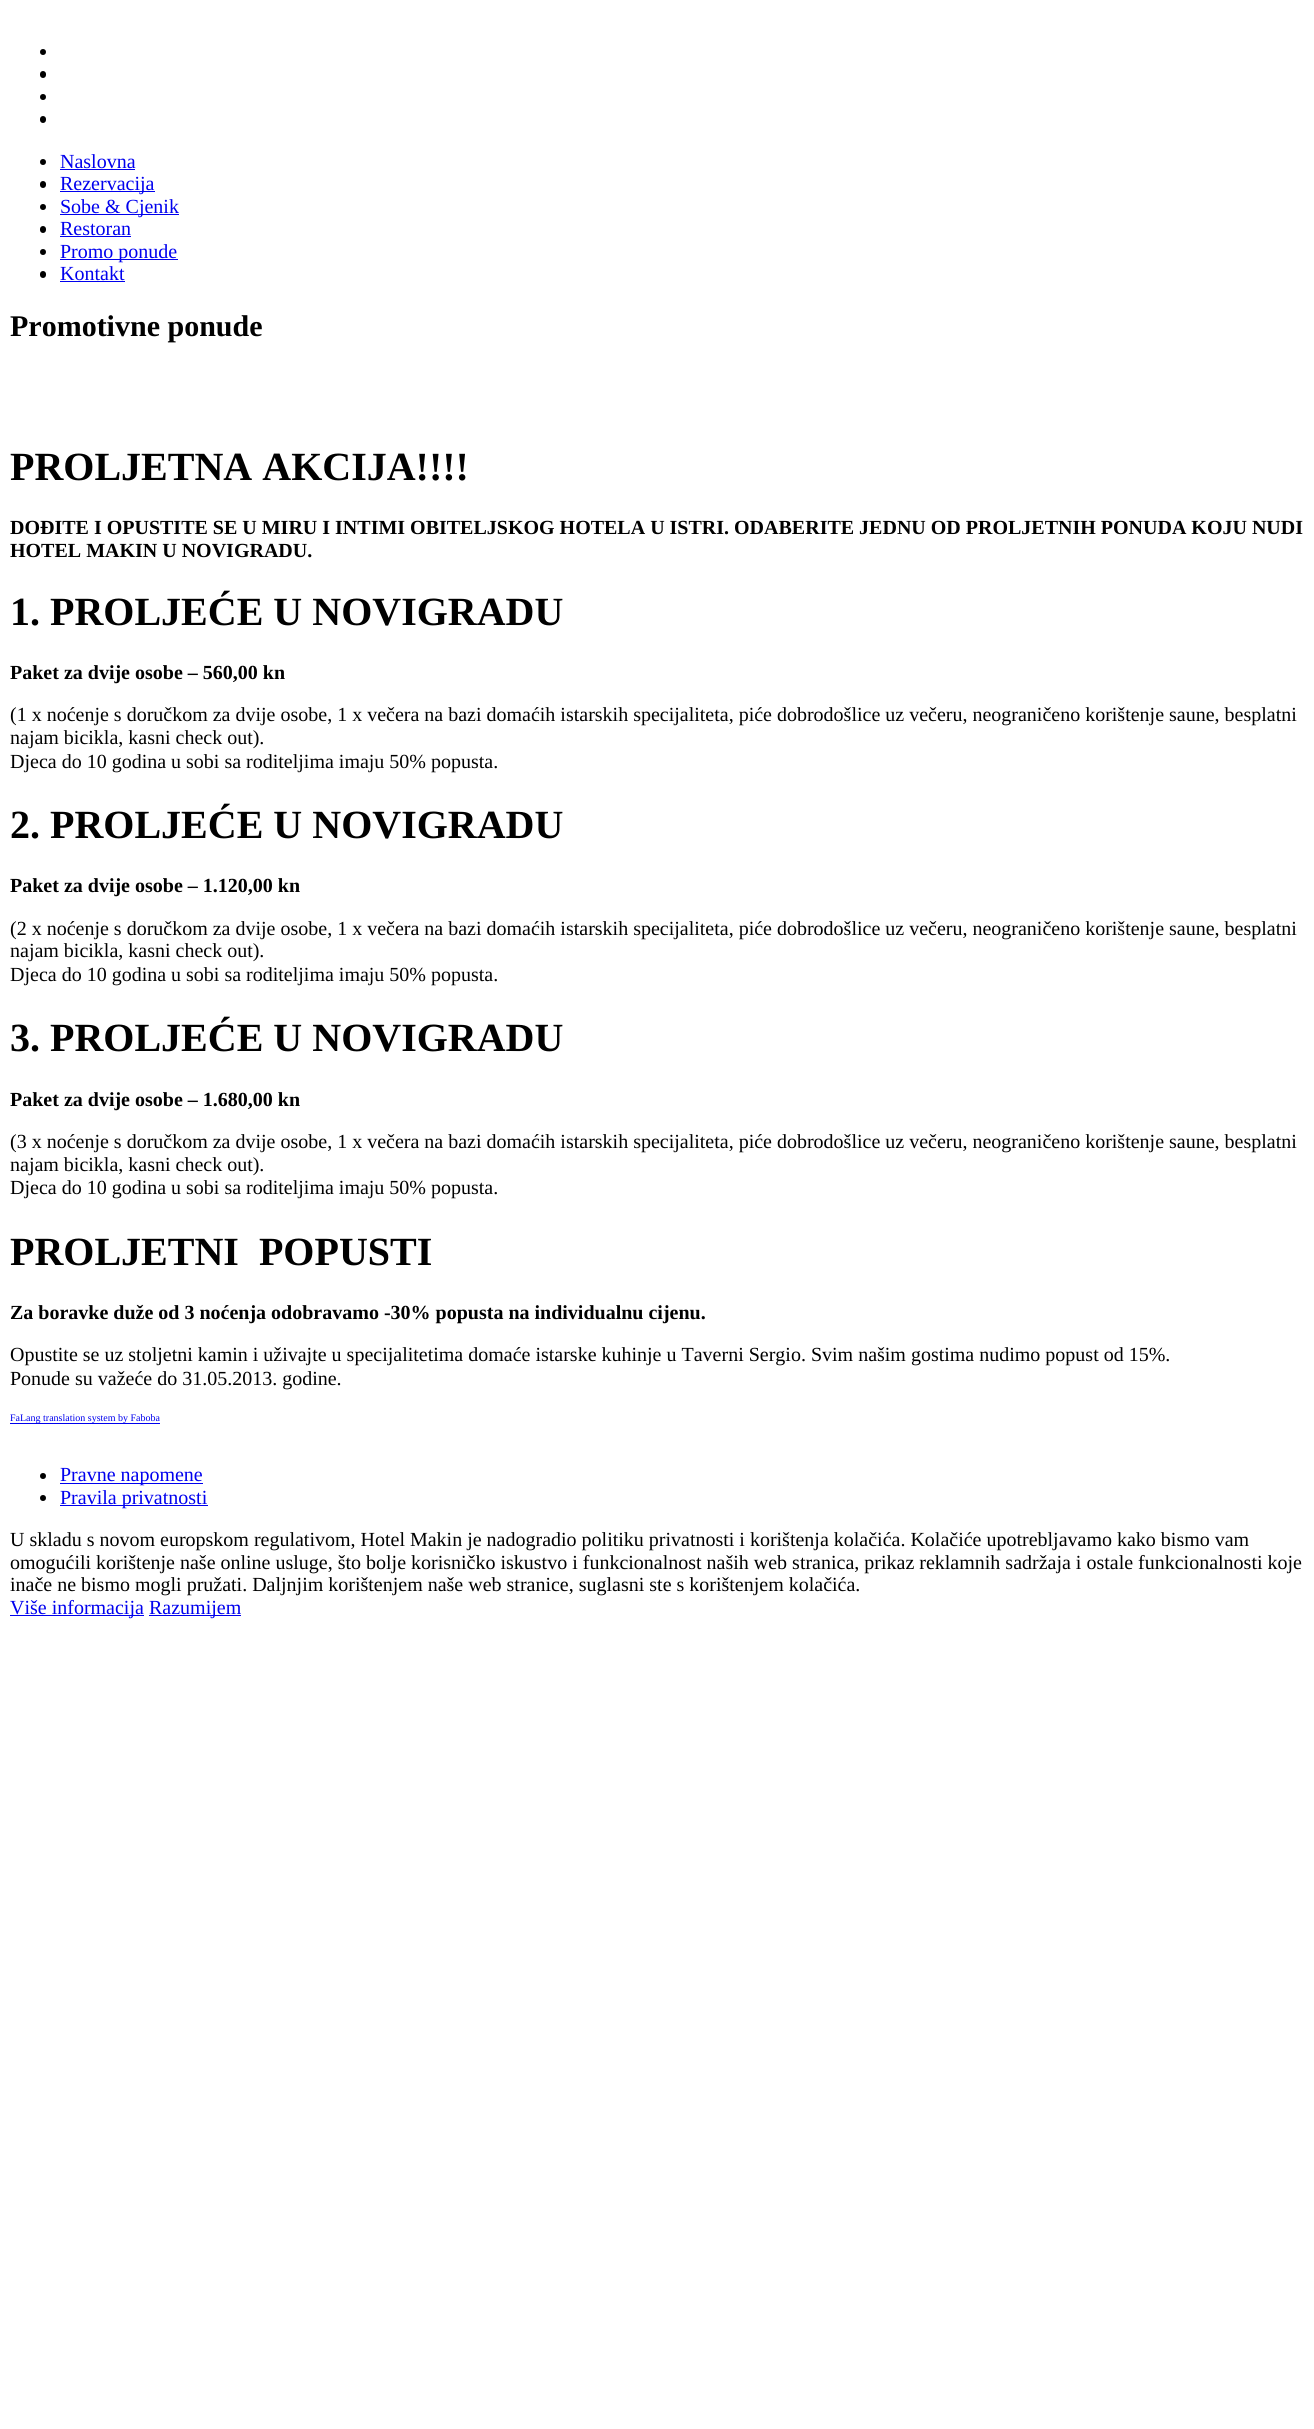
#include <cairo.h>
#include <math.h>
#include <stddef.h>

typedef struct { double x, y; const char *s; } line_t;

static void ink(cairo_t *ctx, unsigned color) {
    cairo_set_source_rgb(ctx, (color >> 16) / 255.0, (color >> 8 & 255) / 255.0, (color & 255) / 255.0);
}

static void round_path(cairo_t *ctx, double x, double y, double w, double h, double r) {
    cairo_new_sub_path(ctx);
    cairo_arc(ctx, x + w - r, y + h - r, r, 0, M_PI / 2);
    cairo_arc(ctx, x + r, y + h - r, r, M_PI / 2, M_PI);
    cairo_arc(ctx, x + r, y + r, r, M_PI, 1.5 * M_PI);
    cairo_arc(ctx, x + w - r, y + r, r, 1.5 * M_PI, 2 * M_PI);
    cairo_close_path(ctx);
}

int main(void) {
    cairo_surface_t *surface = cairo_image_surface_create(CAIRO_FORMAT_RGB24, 1314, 2429);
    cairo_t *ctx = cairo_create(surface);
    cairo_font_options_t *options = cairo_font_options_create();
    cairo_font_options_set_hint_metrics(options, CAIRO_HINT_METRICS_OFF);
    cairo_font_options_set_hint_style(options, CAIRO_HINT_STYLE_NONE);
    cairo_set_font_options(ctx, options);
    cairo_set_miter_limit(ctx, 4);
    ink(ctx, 0xFFFFFF);
    cairo_paint(ctx);
    ink(ctx, 0x000000);
    cairo_arc(ctx, 43, 52, 3, 0, 2 * M_PI);
    cairo_fill(ctx);
    round_path(ctx, 40, 71, 6, 7, 3);
    cairo_fill(ctx);
    cairo_arc(ctx, 43, 97, 3, 0, 2 * M_PI);
    cairo_fill(ctx);
    round_path(ctx, 40, 116, 6, 7, 3);
    cairo_fill(ctx);
    cairo_arc(ctx, 43, 162, 3, 0, 2 * M_PI);
    cairo_fill(ctx);
    cairo_select_font_face(ctx, "Liberation Serif", CAIRO_FONT_SLANT_NORMAL, CAIRO_FONT_WEIGHT_NORMAL);
    cairo_set_font_size(ctx, 20);
    ink(ctx, 0x0000EE);
    cairo_move_to(ctx, 60, 168);
    cairo_show_text(ctx, "Naslovna");
    cairo_rectangle(ctx, 60, 169, 75, 1);
    cairo_fill(ctx);
    ink(ctx, 0x000000);
    round_path(ctx, 40, 181, 6, 7, 3);
    cairo_fill(ctx);
    ink(ctx, 0x0000EE);
    cairo_rectangle(ctx, 60, 191, 95, 1);
    cairo_fill(ctx);
    cairo_move_to(ctx, 60, 190);
    cairo_show_text(ctx, "Rezervacija");
    ink(ctx, 0x000000);
    cairo_new_path(ctx);
    cairo_arc(ctx, 43, 207, 3, 0, 2 * M_PI);
    cairo_fill(ctx);
    ink(ctx, 0x0000EE);
    cairo_rectangle(ctx, 60, 214, 119, 1);
    cairo_fill(ctx);
    cairo_move_to(ctx, 60, 213);
    cairo_show_text(ctx, "Sobe & Cjenik");
    ink(ctx, 0x000000);
    round_path(ctx, 40, 226, 6, 7, 3);
    cairo_fill(ctx);
    ink(ctx, 0x0000EE);
    cairo_move_to(ctx, 60, 235);
    cairo_show_text(ctx, "Restoran");
    cairo_rectangle(ctx, 60, 236, 71, 1);
    cairo_fill(ctx);
    ink(ctx, 0x000000);
    cairo_arc(ctx, 43, 252, 3, 0, 2 * M_PI);
    cairo_fill(ctx);
    ink(ctx, 0x0000EE);
    cairo_rectangle(ctx, 60, 259, 118, 1);
    cairo_fill(ctx);
    cairo_move_to(ctx, 60, 258);
    cairo_show_text(ctx, "Promo ponude");
    ink(ctx, 0x000000);
    round_path(ctx, 40, 271, 6, 7, 3);
    cairo_fill(ctx);
    ink(ctx, 0x0000EE);
    cairo_move_to(ctx, 60, 280);
    cairo_show_text(ctx, "Kontakt");
    cairo_rectangle(ctx, 60, 281, 65, 1);
    cairo_fill(ctx);
    cairo_select_font_face(ctx, "Liberation Serif", CAIRO_FONT_SLANT_NORMAL, CAIRO_FONT_WEIGHT_BOLD);
    cairo_set_font_size(ctx, 30);
    ink(ctx, 0x000000);
    cairo_move_to(ctx, 10, 336);
    cairo_show_text(ctx, "Promotivne ponude");
    cairo_set_font_size(ctx, 40);
    cairo_move_to(ctx, 10, 480);
    cairo_show_text(ctx, "PROLJETNA AKCIJA!!!!");
    cairo_set_font_size(ctx, 20);
    cairo_move_to(ctx, 10, 534);
    cairo_show_text(ctx, "DOĐITE I OPUSTITE SE U MIRU I INTIMI OBITELJSKOG HOTELA U ISTRI. ODABERITE JEDNU OD PROLJETNIH PONUDA KOJU NUDI");
    cairo_move_to(ctx, 10, 557);
    cairo_show_text(ctx, "HOTEL MAKIN U NOVIGRADU.");
    cairo_set_font_size(ctx, 40);
    cairo_move_to(ctx, 10, 625);
    cairo_show_text(ctx, "1. PROLJEĆE U NOVIGRADU");
    cairo_set_font_size(ctx, 20);
    cairo_move_to(ctx, 10, 679);
    cairo_show_text(ctx, "Paket za dvije osobe – 560,00 kn");
    cairo_select_font_face(ctx, "Liberation Serif", CAIRO_FONT_SLANT_NORMAL, CAIRO_FONT_WEIGHT_NORMAL);
    {
        static const line_t items[] = {
            {10, 721, "(1 x noćenje s doručkom za dvije osobe, 1 x večera na bazi domaćih istarskih specijaliteta, piće dobrodošlice uz večeru, neograničeno korištenje saune, besplatni"},
            {10, 744, "najam bicikla, kasni check out)."},
            {10, 768, "Djeca do 10 godina u sobi sa roditeljima imaju 50% popusta."},
        };
        for (size_t i = 0; i < sizeof items / sizeof *items; i++) {
            cairo_move_to(ctx, items[i].x, items[i].y);
            cairo_show_text(ctx, items[i].s);
        }
    }
    cairo_select_font_face(ctx, "Liberation Serif", CAIRO_FONT_SLANT_NORMAL, CAIRO_FONT_WEIGHT_BOLD);
    cairo_set_font_size(ctx, 40);
    cairo_move_to(ctx, 10, 838);
    cairo_show_text(ctx, "2. PROLJEĆE U NOVIGRADU");
    cairo_set_font_size(ctx, 20);
    cairo_move_to(ctx, 10, 892);
    cairo_show_text(ctx, "Paket za dvije osobe – 1.120,00 kn");
    cairo_select_font_face(ctx, "Liberation Serif", CAIRO_FONT_SLANT_NORMAL, CAIRO_FONT_WEIGHT_NORMAL);
    {
        static const line_t items[] = {
            {10, 935, "(2 x noćenje s doručkom za dvije osobe, 1 x večera na bazi domaćih istarskih specijaliteta, piće dobrodošlice uz večeru, neograničeno korištenje saune, besplatni"},
            {10, 957, "najam bicikla, kasni check out)."},
            {10, 981, "Djeca do 10 godina u sobi sa roditeljima imaju 50% popusta."},
        };
        for (size_t i = 0; i < sizeof items / sizeof *items; i++) {
            cairo_move_to(ctx, items[i].x, items[i].y);
            cairo_show_text(ctx, items[i].s);
        }
    }
    cairo_select_font_face(ctx, "Liberation Serif", CAIRO_FONT_SLANT_NORMAL, CAIRO_FONT_WEIGHT_BOLD);
    cairo_set_font_size(ctx, 40);
    cairo_move_to(ctx, 10, 1051);
    cairo_show_text(ctx, "3. PROLJEĆE U NOVIGRADU");
    cairo_set_font_size(ctx, 20);
    cairo_move_to(ctx, 10, 1106);
    cairo_show_text(ctx, "Paket za dvije osobe – 1.680,00 kn");
    cairo_select_font_face(ctx, "Liberation Serif", CAIRO_FONT_SLANT_NORMAL, CAIRO_FONT_WEIGHT_NORMAL);
    {
        static const line_t items[] = {
            {10, 1148, "(3 x noćenje s doručkom za dvije osobe, 1 x večera na bazi domaćih istarskih specijaliteta, piće dobrodošlice uz večeru, neograničeno korištenje saune, besplatni"},
            {10, 1171, "najam bicikla, kasni check out)."},
            {10, 1194, "Djeca do 10 godina u sobi sa roditeljima imaju 50% popusta."},
        };
        for (size_t i = 0; i < sizeof items / sizeof *items; i++) {
            cairo_move_to(ctx, items[i].x, items[i].y);
            cairo_show_text(ctx, items[i].s);
        }
    }
    cairo_select_font_face(ctx, "Liberation Serif", CAIRO_FONT_SLANT_NORMAL, CAIRO_FONT_WEIGHT_BOLD);
    cairo_set_font_size(ctx, 40);
    cairo_move_to(ctx, 10, 1265);
    cairo_show_text(ctx, "PROLJETNI  POPUSTI");
    cairo_set_font_size(ctx, 20);
    cairo_move_to(ctx, 10, 1319);
    cairo_show_text(ctx, "Za boravke duže od 3 noćenja odobravamo -30% popusta na individualnu cijenu.");
    cairo_select_font_face(ctx, "Liberation Serif", CAIRO_FONT_SLANT_NORMAL, CAIRO_FONT_WEIGHT_NORMAL);
    cairo_move_to(ctx, 10, 1361);
    cairo_show_text(ctx, "Opustite se uz stoljetni kamin i uživajte u specijalitetima domaće istarske kuhinje u Taverni Sergio. Svim našim gostima nudimo popust od 15%.");
    cairo_move_to(ctx, 10, 1385);
    cairo_show_text(ctx, "Ponude su važeće do 31.05.2013. godine.");
    ink(ctx, 0x0000EE);
    cairo_rectangle(ctx, 10, 1423, 150, 1);
    cairo_fill(ctx);
    cairo_set_font_size(ctx, 10);
    cairo_move_to(ctx, 10, 1421);
    cairo_show_text(ctx, "FaLang translation system by Faboba");
    ink(ctx, 0x000000);
    cairo_new_path(ctx);
    cairo_arc(ctx, 43, 1476, 3, 0, 2 * M_PI);
    cairo_fill(ctx);
    ink(ctx, 0x0000EE);
    cairo_rectangle(ctx, 60, 1483, 143, 1);
    cairo_fill(ctx);
    cairo_set_font_size(ctx, 20);
    cairo_move_to(ctx, 60, 1481);
    cairo_show_text(ctx, "Pravne napomene");
    ink(ctx, 0x000000);
    cairo_new_path(ctx);
    cairo_arc(ctx, 43, 1498, 3, 0, 2 * M_PI);
    cairo_fill(ctx);
    ink(ctx, 0x0000EE);
    cairo_rectangle(ctx, 60, 1505, 148, 1);
    cairo_fill(ctx);
    cairo_move_to(ctx, 60, 1504);
    cairo_show_text(ctx, "Pravila privatnosti");
    ink(ctx, 0x000000);
    {
        static const line_t items[] = {
            {10, 1546, "U skladu s novom europskom regulativom, Hotel Makin je nadogradio politiku privatnosti i korištenja kolačića. Kolačiće upotrebljavamo kako bismo vam"},
            {10, 1569, "omogućili korištenje naše online usluge, što bolje korisničko iskustvo i funkcionalnost naših web stranica, prikaz reklamnih sadržaja i ostale funkcionalnosti koje"},
            {10, 1591, "inače ne bismo mogli pružati. Daljnjim korištenjem naše web stranice, suglasni ste s korištenjem kolačića."},
        };
        for (size_t i = 0; i < sizeof items / sizeof *items; i++) {
            cairo_move_to(ctx, items[i].x, items[i].y);
            cairo_show_text(ctx, items[i].s);
        }
    }
    ink(ctx, 0x0000EE);
    cairo_rectangle(ctx, 10, 1615, 134, 1);
    cairo_fill(ctx);
    cairo_move_to(ctx, 10, 1614);
    cairo_show_text(ctx, "Više informacija");
    cairo_rectangle(ctx, 149, 1615, 92, 1);
    cairo_fill(ctx);
    cairo_move_to(ctx, 149, 1614);
    cairo_show_text(ctx, "Razumijem");
    cairo_surface_write_to_png(surface, "image.png");
    cairo_font_options_destroy(options);
    cairo_destroy(ctx);
    cairo_surface_destroy(surface);
    return 0;
}
